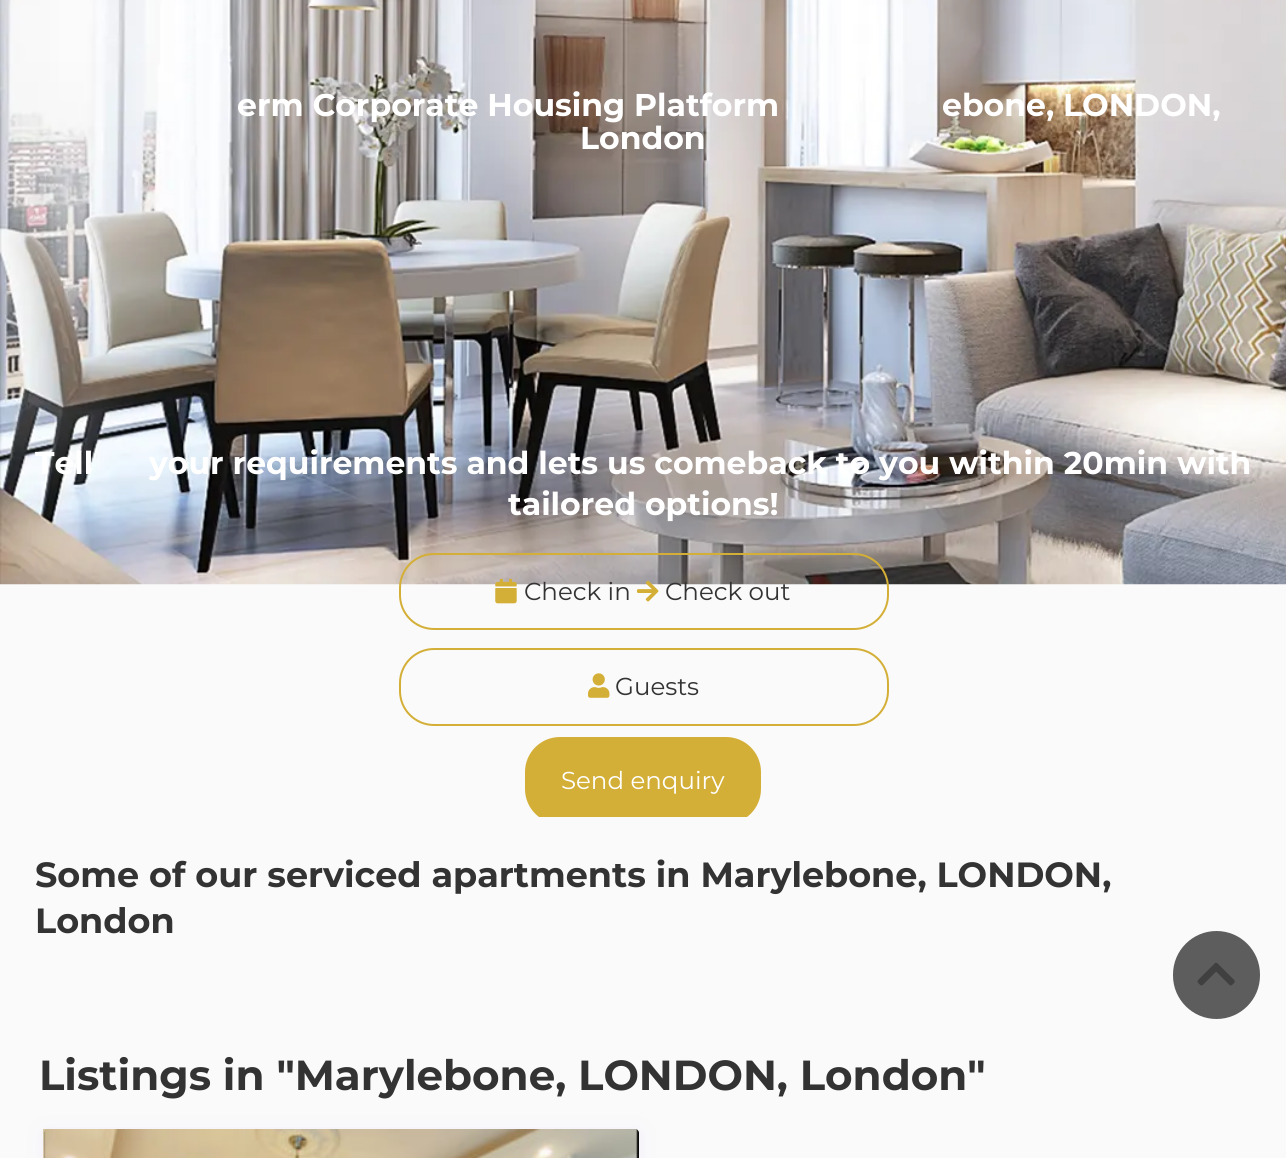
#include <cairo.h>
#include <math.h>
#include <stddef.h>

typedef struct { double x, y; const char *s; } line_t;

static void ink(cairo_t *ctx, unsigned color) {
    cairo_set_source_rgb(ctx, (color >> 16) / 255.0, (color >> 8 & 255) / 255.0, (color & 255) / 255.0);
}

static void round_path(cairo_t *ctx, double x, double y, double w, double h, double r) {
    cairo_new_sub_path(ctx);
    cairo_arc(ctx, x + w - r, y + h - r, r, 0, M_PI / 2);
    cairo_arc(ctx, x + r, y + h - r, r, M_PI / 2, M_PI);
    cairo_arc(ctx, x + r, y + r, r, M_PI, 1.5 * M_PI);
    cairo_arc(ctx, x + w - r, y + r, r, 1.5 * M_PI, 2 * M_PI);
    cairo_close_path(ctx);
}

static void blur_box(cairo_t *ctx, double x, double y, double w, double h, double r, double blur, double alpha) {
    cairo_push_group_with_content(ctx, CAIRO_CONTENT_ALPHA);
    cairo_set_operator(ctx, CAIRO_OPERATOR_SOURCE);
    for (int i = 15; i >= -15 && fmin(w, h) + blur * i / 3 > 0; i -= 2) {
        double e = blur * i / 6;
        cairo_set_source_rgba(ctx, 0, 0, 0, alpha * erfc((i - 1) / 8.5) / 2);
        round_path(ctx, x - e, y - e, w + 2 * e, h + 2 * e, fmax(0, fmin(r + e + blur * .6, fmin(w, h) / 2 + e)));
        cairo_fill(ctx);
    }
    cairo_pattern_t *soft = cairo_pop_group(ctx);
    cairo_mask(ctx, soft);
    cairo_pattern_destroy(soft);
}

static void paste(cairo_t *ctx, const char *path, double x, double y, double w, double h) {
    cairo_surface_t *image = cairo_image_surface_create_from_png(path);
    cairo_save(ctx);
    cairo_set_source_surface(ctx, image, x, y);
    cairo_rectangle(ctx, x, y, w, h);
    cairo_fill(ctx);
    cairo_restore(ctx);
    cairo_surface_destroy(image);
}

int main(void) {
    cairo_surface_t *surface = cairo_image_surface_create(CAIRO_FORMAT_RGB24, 1286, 1158);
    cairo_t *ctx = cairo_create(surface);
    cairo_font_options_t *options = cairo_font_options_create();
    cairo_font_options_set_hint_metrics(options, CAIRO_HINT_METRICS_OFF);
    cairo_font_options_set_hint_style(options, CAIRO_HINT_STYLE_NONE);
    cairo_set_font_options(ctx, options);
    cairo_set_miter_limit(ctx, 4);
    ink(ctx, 0xFAFAFA);
    cairo_paint(ctx);
    paste(ctx, "media/1.png", 0, 0, 1286, 585);
    cairo_select_font_face(ctx, "Montserrat", CAIRO_FONT_SLANT_NORMAL, CAIRO_FONT_WEIGHT_BOLD);
    cairo_set_font_size(ctx, 31.5);
    ink(ctx, 0xFFFFFF);
    {
        static const line_t items[] = {
            {237, 116, "erm Corporate Housing Platform"},
            {942, 116, "ebone, LONDON,"},
            {580, 149, "London"},
            {35, 474, "Tell"},
            {149, 474, "your requirements and lets us comeback to you within 20min with"},
            {508, 515, "tailored options!"},
        };
        for (size_t i = 0; i < sizeof items / sizeof *items; i++) {
            cairo_move_to(ctx, items[i].x, items[i].y);
            cairo_show_text(ctx, items[i].s);
        }
    }
    round_path(ctx, 400, 554, 488, 75, 34);
    ink(ctx, 0xD4AF37);
    cairo_stroke(ctx);
    paste(ctx, "media/2.png", 495, 578, 22, 26);
    cairo_select_font_face(ctx, "Montserrat", CAIRO_FONT_SLANT_NORMAL, CAIRO_FONT_WEIGHT_NORMAL);
    cairo_set_font_size(ctx, 24.5);
    ink(ctx, 0x333333);
    cairo_move_to(ctx, 524, 600);
    cairo_show_text(ctx, "Check in");
    paste(ctx, "media/3.png", 637, 580, 22, 22);
    cairo_move_to(ctx, 665, 600);
    cairo_show_text(ctx, "Check out");
    round_path(ctx, 400, 649, 488, 76, 34);
    ink(ctx, 0xD4AF37);
    cairo_stroke(ctx);
    paste(ctx, "media/4.png", 588, 673, 22, 25);
    ink(ctx, 0x333333);
    cairo_move_to(ctx, 615, 695);
    cairo_show_text(ctx, "Guests");
    cairo_save(ctx);
    cairo_rectangle(ctx, 0, 0, 1286, 817);
    cairo_clip(ctx);
    ink(ctx, 0xD4AF37);
    round_path(ctx, 526, 738, 234, 85, 34);
    cairo_fill_preserve(ctx);
    cairo_stroke(ctx);
    cairo_restore(ctx);
    ink(ctx, 0xFFFFFF);
    cairo_move_to(ctx, 561, 789);
    cairo_show_text(ctx, "Send enquiry");
    cairo_select_font_face(ctx, "Montserrat", CAIRO_FONT_SLANT_NORMAL, CAIRO_FONT_WEIGHT_BOLD);
    cairo_set_font_size(ctx, 35);
    ink(ctx, 0x333333);
    cairo_move_to(ctx, 35, 887);
    cairo_show_text(ctx, "Some of our serviced apartments in Marylebone, LONDON,");
    cairo_move_to(ctx, 35, 933);
    cairo_show_text(ctx, "London");
    cairo_set_font_size(ctx, 42);
    cairo_move_to(ctx, 39, 1090);
    cairo_show_text(ctx, "Listings in \"Marylebone, LONDON, London\"");
    ink(ctx, 0xB57FFA);
    blur_box(ctx, 44, 1132, 595, 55, 0, 9.5, 0.1);
    ink(ctx, 0xFFFFFF);
    cairo_rectangle(ctx, 44, 1129, 595, 4);
    cairo_fill(ctx);
    ink(ctx, 0x000000);
    round_path(ctx, 44, 1129, 595, 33, 4);
    cairo_fill(ctx);
    paste(ctx, "media/5.png", 43, 1129, 596, 29);
    ink(ctx, 0x5D5D5D);
    round_path(ctx, 1173, 931, 87, 88, 43.5);
    cairo_fill(ctx);
    paste(ctx, "media/6.png", 1197, 962, 38, 24);
    cairo_surface_write_to_png(surface, "image.png");
    cairo_font_options_destroy(options);
    cairo_destroy(ctx);
    cairo_surface_destroy(surface);
    return 0;
}
